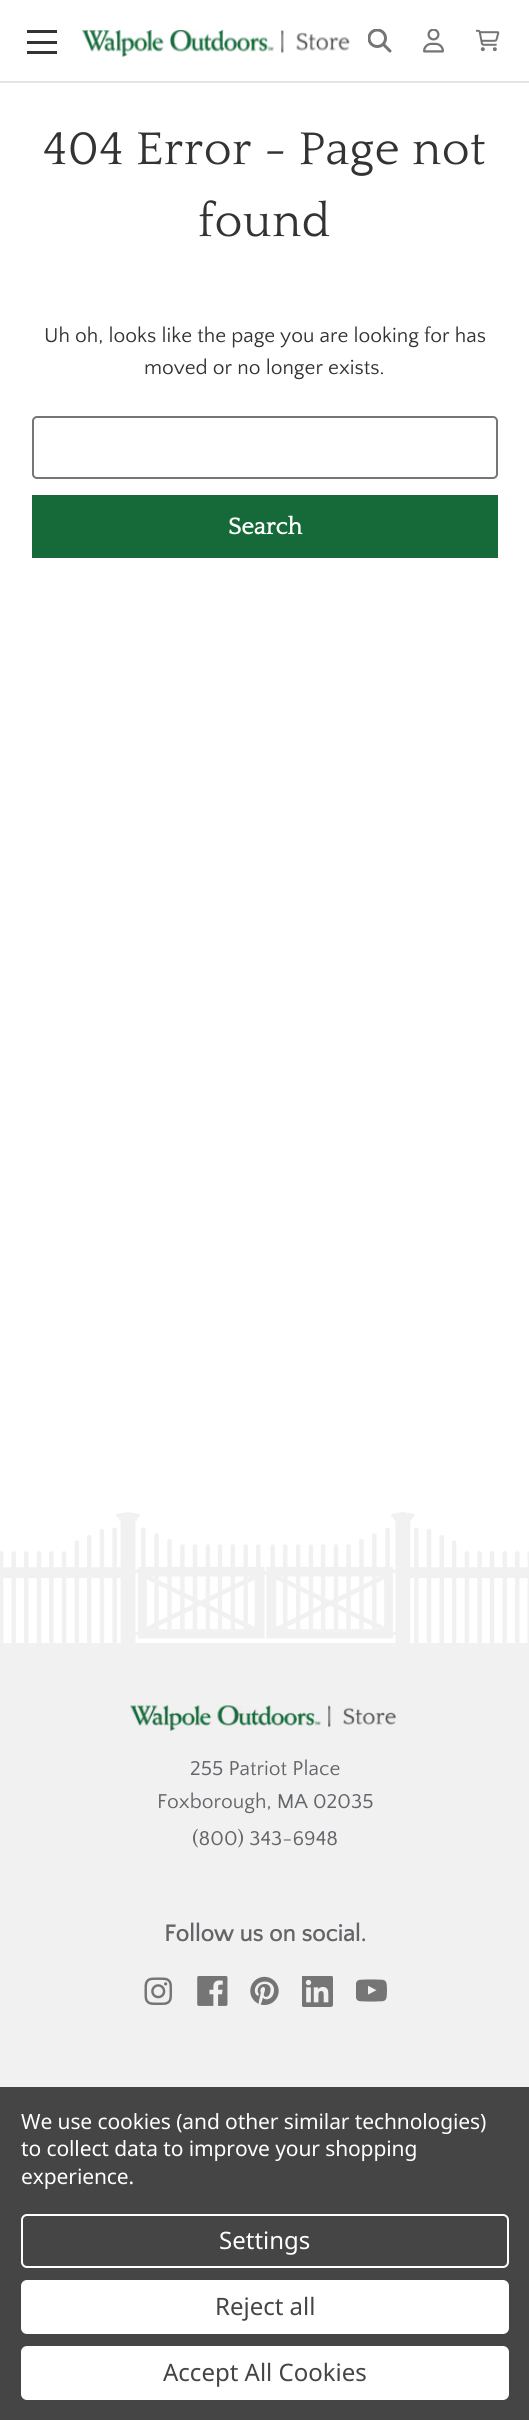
#include <cairo.h>
#include <math.h>
#include <stddef.h>

typedef struct { double x, y; const char *s; } line_t;
typedef struct { double x, y, w, h; unsigned color; } box_t;

static void ink(cairo_t *ctx, unsigned color) {
    cairo_set_source_rgb(ctx, (color >> 16) / 255.0, (color >> 8 & 255) / 255.0, (color & 255) / 255.0);
}

static void write_spaced(cairo_t *ctx, double x, double y, const char *s, double letter, double word) {
    cairo_move_to(ctx, x, y);
    while (*s) {
        char ch[5] = {0};
        int n = 0;
        do ch[n++] = *s++; while ((*s & 0xC0) == 0x80);
        cairo_show_text(ctx, ch);
        cairo_rel_move_to(ctx, letter + word * (*ch == ' '), 0);
    }
}

static void round_path(cairo_t *ctx, double x, double y, double w, double h, double r) {
    cairo_new_sub_path(ctx);
    cairo_arc(ctx, x + w - r, y + h - r, r, 0, M_PI / 2);
    cairo_arc(ctx, x + r, y + h - r, r, M_PI / 2, M_PI);
    cairo_arc(ctx, x + r, y + r, r, M_PI, 1.5 * M_PI);
    cairo_arc(ctx, x + w - r, y + r, r, 1.5 * M_PI, 2 * M_PI);
    cairo_close_path(ctx);
}

static void paste(cairo_t *ctx, const char *path, double x, double y, double w, double h) {
    cairo_surface_t *image = cairo_image_surface_create_from_png(path);
    cairo_save(ctx);
    cairo_set_source_surface(ctx, image, x, y);
    cairo_rectangle(ctx, x, y, w, h);
    cairo_fill(ctx);
    cairo_restore(ctx);
    cairo_surface_destroy(image);
}

int main(void) {
    cairo_surface_t *surface = cairo_image_surface_create(CAIRO_FORMAT_RGB24, 529, 2420);
    cairo_t *ctx = cairo_create(surface);
    cairo_font_options_t *options = cairo_font_options_create();
    cairo_font_options_set_hint_metrics(options, CAIRO_HINT_METRICS_OFF);
    cairo_font_options_set_hint_style(options, CAIRO_HINT_STYLE_NONE);
    cairo_set_font_options(ctx, options);
    cairo_set_miter_limit(ctx, 4);
    ink(ctx, 0xFFFFFF);
    cairo_paint(ctx);
    ink(ctx, 0xE5E5E5);
    cairo_rectangle(ctx, 0, 81, 529, 2);
    cairo_fill(ctx);
    paste(ctx, "media/1.png", 82, 30, 268, 27);
    paste(ctx, "media/2.png", 368, 29, 24, 24);
    paste(ctx, "media/3.png", 423, 29, 21, 24);
    paste(ctx, "media/4.png", 476, 29, 24, 23);
    {
        static const box_t items[] = {
            {27, 41, 30, 3, 0x333333},
            {27, 30, 30, 3, 0x333333},
            {27, 51, 30, 3, 0x333333},
        };
        for (size_t i = 0; i < sizeof items / sizeof *items; i++) {
            ink(ctx, items[i].color);
            cairo_rectangle(ctx, items[i].x, items[i].y, items[i].w, items[i].h);
            cairo_fill(ctx);
        }
    }
    cairo_select_font_face(ctx, "Quattrocento", CAIRO_FONT_SLANT_NORMAL, CAIRO_FONT_WEIGHT_NORMAL);
    cairo_set_font_size(ctx, 48);
    write_spaced(ctx, 43, 164, "404 Error - Page not", 0.4, 0);
    write_spaced(ctx, 198, 236, "found", 0.4, 0);
    cairo_select_font_face(ctx, "Quattrocento Sans", CAIRO_FONT_SLANT_NORMAL, CAIRO_FONT_WEIGHT_NORMAL);
    cairo_set_font_size(ctx, 21);
    cairo_move_to(ctx, 44, 342);
    cairo_show_text(ctx, "Uh oh, looks like the page you are looking for has");
    cairo_move_to(ctx, 144, 374);
    cairo_show_text(ctx, "moved or no longer exists.");
    round_path(ctx, 33, 417, 464, 61, 4);
    ink(ctx, 0x767676);
    cairo_stroke(ctx);
    ink(ctx, 0x166938);
    cairo_rectangle(ctx, 32, 495, 466, 63);
    cairo_fill(ctx);
    cairo_select_font_face(ctx, "Quattrocento", CAIRO_FONT_SLANT_NORMAL, CAIRO_FONT_WEIGHT_BOLD);
    cairo_set_font_size(ctx, 24);
    ink(ctx, 0xFFFFFF);
    cairo_move_to(ctx, 228, 534);
    cairo_show_text(ctx, "Search");
    paste(ctx, "media/5.png", 0, 1512, 529, 131);
    ink(ctx, 0xF1F1F1);
    cairo_rectangle(ctx, 0, 1643, 529, 444);
    cairo_fill(ctx);
    paste(ctx, "media/6.png", 130, 1705, 266, 26);
    cairo_select_font_face(ctx, "Quattrocento Sans", CAIRO_FONT_SLANT_NORMAL, CAIRO_FONT_WEIGHT_NORMAL);
    cairo_set_font_size(ctx, 21);
    ink(ctx, 0x636569);
    {
        static const line_t items[] = {
            {190, 1775, "255 Patriot Place"},
            {157, 1808, "Foxborough, MA 02035"},
            {192, 1845, "(800) 343-6948"},
        };
        for (size_t i = 0; i < sizeof items / sizeof *items; i++) {
            cairo_move_to(ctx, items[i].x, items[i].y);
            cairo_show_text(ctx, items[i].s);
        }
    }
    cairo_select_font_face(ctx, "Quattrocento Sans", CAIRO_FONT_SLANT_NORMAL, CAIRO_FONT_WEIGHT_BOLD);
    cairo_set_font_size(ctx, 24);
    cairo_move_to(ctx, 164, 1941);
    cairo_show_text(ctx, "Follow us on social.");
    paste(ctx, "media/7.png", 144, 1977, 29, 28);
    paste(ctx, "media/8.png", 197, 1976, 31, 30);
    paste(ctx, "media/9.png", 250, 1976, 29, 29);
    paste(ctx, "media/10.png", 302, 1976, 31, 31);
    paste(ctx, "media/11.png", 356, 1979, 31, 23);
    ink(ctx, 0x454545);
    cairo_rectangle(ctx, 0, 2087, 529, 333);
    cairo_fill(ctx);
    cairo_select_font_face(ctx, "Noto Sans", CAIRO_FONT_SLANT_NORMAL, CAIRO_FONT_WEIGHT_NORMAL);
    cairo_set_font_size(ctx, 21);
    ink(ctx, 0xFFFFFF);
    {
        static const line_t items[] = {
            {21, 2129, "We use cookies (and other similar technologies)"},
            {21, 2156, "to collect data to improve your shopping"},
            {21, 2184, "experience."},
        };
        for (size_t i = 0; i < sizeof items / sizeof *items; i++) {
            write_spaced(ctx, items[i].x, items[i].y, items[i].s, -0.1, 0);
        }
    }
    round_path(ctx, 22, 2215, 486, 52, 5);
    cairo_stroke(ctx);
    cairo_set_font_size(ctx, 24);
    cairo_move_to(ctx, 219, 2249);
    cairo_show_text(ctx, "Settings");
    round_path(ctx, 21, 2280, 488, 54, 6);
    cairo_fill(ctx);
    ink(ctx, 0x454545);
    cairo_move_to(ctx, 215, 2315);
    cairo_show_text(ctx, "Reject all");
    ink(ctx, 0xFFFFFF);
    round_path(ctx, 21, 2346, 488, 54, 6);
    cairo_fill(ctx);
    ink(ctx, 0x454545);
    cairo_move_to(ctx, 163, 2381);
    cairo_show_text(ctx, "Accept All Cookies");
    cairo_surface_write_to_png(surface, "image.png");
    cairo_font_options_destroy(options);
    cairo_destroy(ctx);
    cairo_surface_destroy(surface);
    return 0;
}
